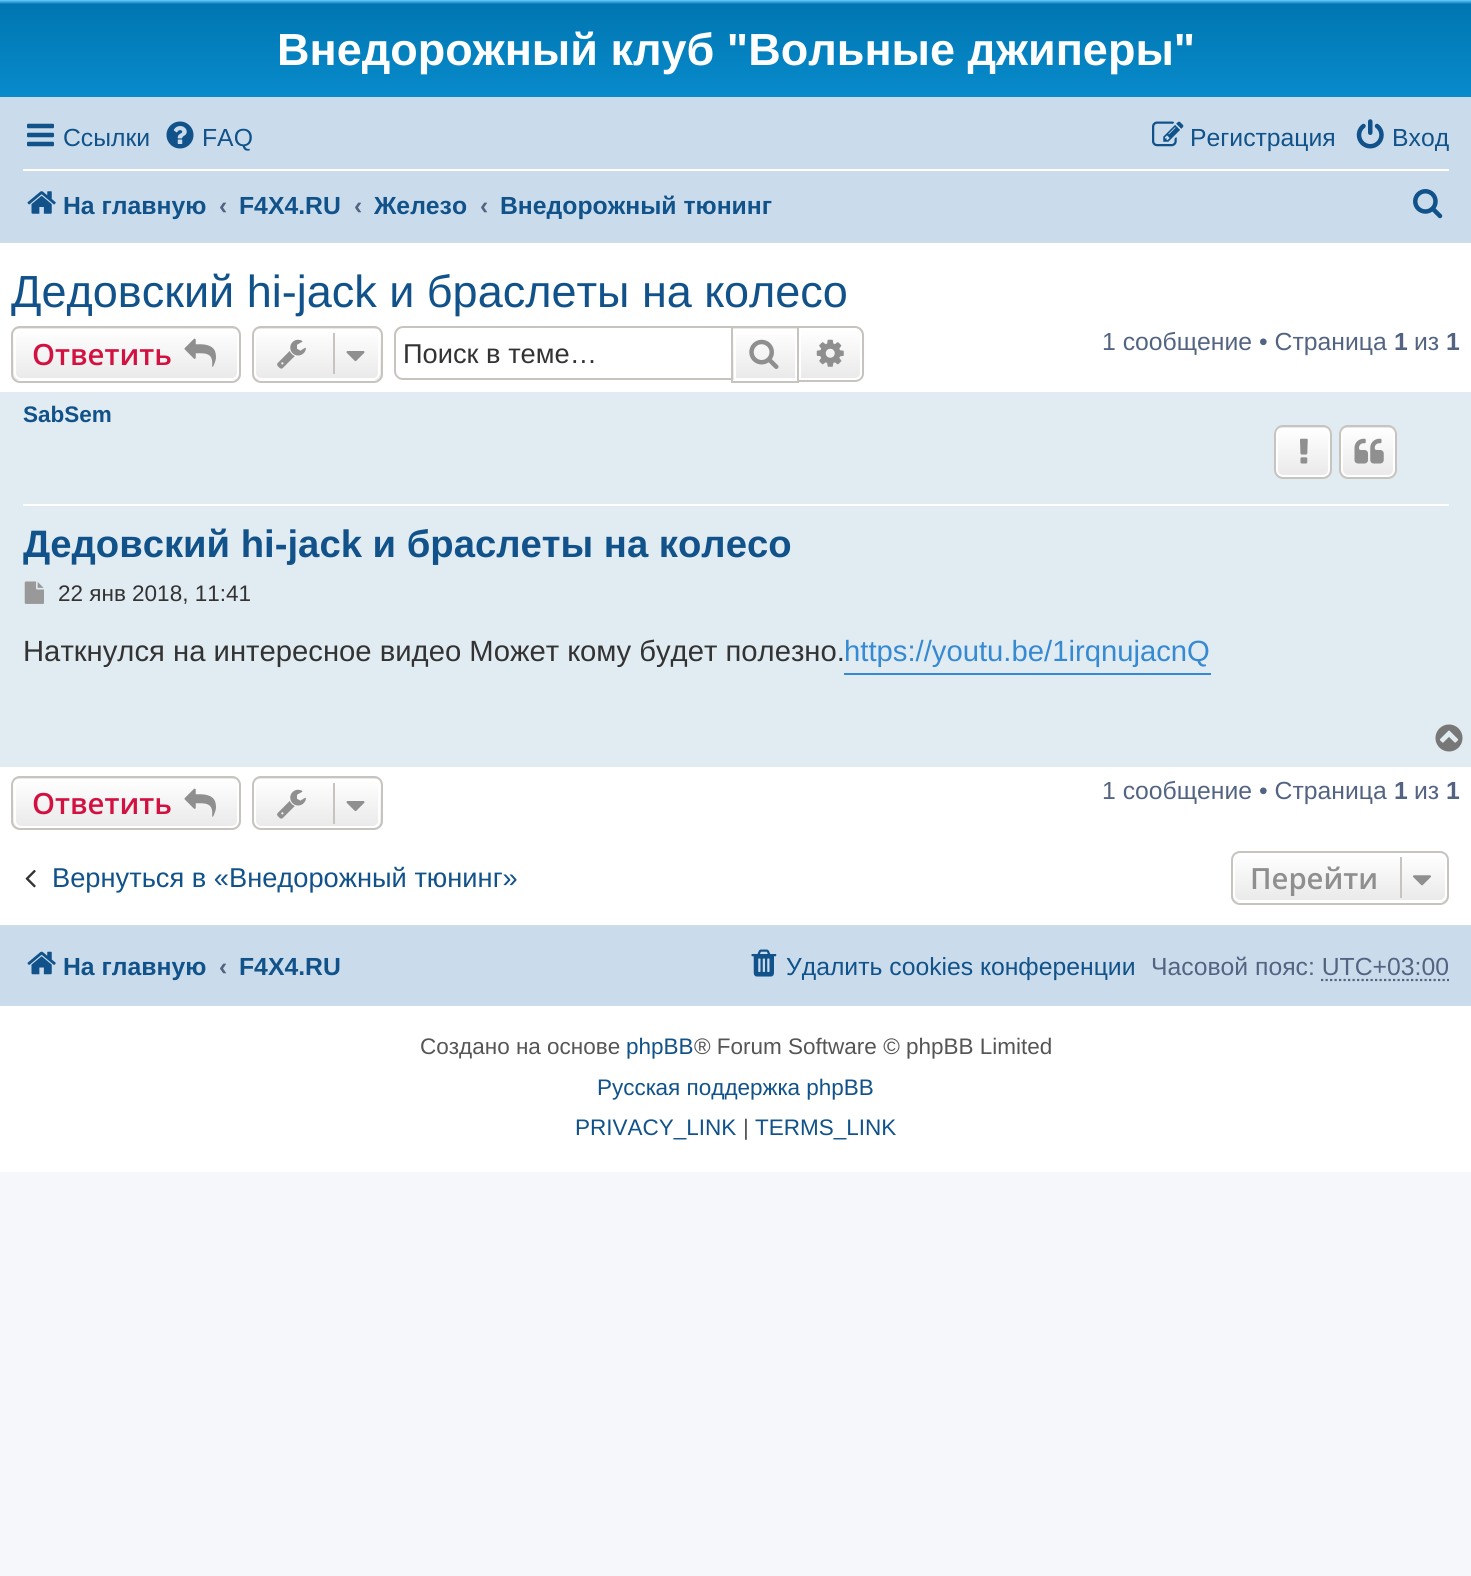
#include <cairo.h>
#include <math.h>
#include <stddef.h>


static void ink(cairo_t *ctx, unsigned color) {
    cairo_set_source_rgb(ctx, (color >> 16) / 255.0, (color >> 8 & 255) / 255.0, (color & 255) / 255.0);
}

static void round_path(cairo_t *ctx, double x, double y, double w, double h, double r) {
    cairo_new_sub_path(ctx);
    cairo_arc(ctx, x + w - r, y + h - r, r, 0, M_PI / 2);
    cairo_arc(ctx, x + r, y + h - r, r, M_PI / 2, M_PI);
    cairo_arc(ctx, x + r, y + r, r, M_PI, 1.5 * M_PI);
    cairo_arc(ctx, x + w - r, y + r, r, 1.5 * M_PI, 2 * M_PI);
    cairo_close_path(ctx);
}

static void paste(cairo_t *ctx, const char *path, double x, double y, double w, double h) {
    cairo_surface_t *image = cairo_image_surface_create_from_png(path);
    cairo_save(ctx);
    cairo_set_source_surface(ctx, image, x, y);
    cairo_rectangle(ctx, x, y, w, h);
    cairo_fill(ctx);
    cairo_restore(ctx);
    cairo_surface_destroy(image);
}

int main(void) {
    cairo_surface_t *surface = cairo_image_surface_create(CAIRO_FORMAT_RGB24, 1471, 1576);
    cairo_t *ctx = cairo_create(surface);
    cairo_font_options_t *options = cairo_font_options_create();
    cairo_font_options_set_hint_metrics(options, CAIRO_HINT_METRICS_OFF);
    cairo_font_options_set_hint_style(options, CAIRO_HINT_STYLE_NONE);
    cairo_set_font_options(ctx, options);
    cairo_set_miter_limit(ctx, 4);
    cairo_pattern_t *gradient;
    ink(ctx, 0xF5F7FA);
    cairo_paint(ctx);
    ink(ctx, 0xFFFFFF);
    cairo_rectangle(ctx, 0, 243, 1471, 929);
    cairo_fill(ctx);
    gradient = cairo_pattern_create_linear(736, 0, 736, 207);
    cairo_pattern_add_color_stop_rgba(gradient, 0, 0.416, 0.808, 1, 1);
    cairo_pattern_add_color_stop_rgba(gradient, 0.02, 0, 0.463, 0.694, 1);
    cairo_pattern_add_color_stop_rgba(gradient, 1, 0.071, 0.639, 0.922, 1);
    cairo_set_source(ctx, gradient);
    cairo_pattern_destroy(gradient);
    cairo_rectangle(ctx, 0, 0, 1471, 97);
    cairo_fill(ctx);
    cairo_select_font_face(ctx, "Liberation Sans", CAIRO_FONT_SLANT_NORMAL, CAIRO_FONT_WEIGHT_BOLD);
    cairo_set_font_size(ctx, 45);
    ink(ctx, 0xFFFFFF);
    cairo_move_to(ctx, 277, 65);
    cairo_show_text(ctx, "Внедорожный клуб \"Вольные джиперы\"");
    ink(ctx, 0xCADCEB);
    cairo_rectangle(ctx, 0, 97, 1471, 146);
    cairo_fill(ctx);
    paste(ctx, "media/1.png", 27, 123, 27, 24);
    cairo_select_font_face(ctx, "Liberation Sans", CAIRO_FONT_SLANT_NORMAL, CAIRO_FONT_WEIGHT_NORMAL);
    cairo_set_font_size(ctx, 24.75);
    ink(ctx, 0x105289);
    cairo_move_to(ctx, 63, 146);
    cairo_show_text(ctx, "Ссылки");
    paste(ctx, "media/2.png", 166, 121, 28, 28);
    cairo_move_to(ctx, 202, 146);
    cairo_show_text(ctx, "FAQ");
    paste(ctx, "media/3.png", 1152, 121, 32, 26);
    cairo_move_to(ctx, 1190, 146);
    cairo_show_text(ctx, "Регистрация");
    paste(ctx, "media/4.png", 1356, 119, 28, 30);
    cairo_move_to(ctx, 1392, 146);
    cairo_show_text(ctx, "Вход");
    ink(ctx, 0xFFFFFF);
    cairo_rectangle(ctx, 23, 169, 1426, 2);
    cairo_fill(ctx);
    paste(ctx, "media/5.png", 27, 191, 29, 23);
    cairo_select_font_face(ctx, "Liberation Sans", CAIRO_FONT_SLANT_NORMAL, CAIRO_FONT_WEIGHT_BOLD);
    ink(ctx, 0x105289);
    cairo_move_to(ctx, 63, 214);
    cairo_show_text(ctx, "На главную");
    ink(ctx, 0x536482);
    cairo_move_to(ctx, 219, 214);
    cairo_show_text(ctx, "‹");
    ink(ctx, 0x105289);
    cairo_move_to(ctx, 239, 214);
    cairo_show_text(ctx, "F4X4.RU");
    ink(ctx, 0x536482);
    cairo_move_to(ctx, 354, 214);
    cairo_show_text(ctx, "‹");
    ink(ctx, 0x105289);
    cairo_move_to(ctx, 374, 214);
    cairo_show_text(ctx, "Железо");
    ink(ctx, 0x536482);
    cairo_move_to(ctx, 480, 214);
    cairo_show_text(ctx, "‹");
    ink(ctx, 0x105289);
    cairo_move_to(ctx, 500, 214);
    cairo_show_text(ctx, "Внедорожный тюнинг");
    paste(ctx, "media/6.png", 1413, 189, 30, 30);
    cairo_select_font_face(ctx, "Liberation Sans", CAIRO_FONT_SLANT_NORMAL, CAIRO_FONT_WEIGHT_NORMAL);
    cairo_set_font_size(ctx, 45);
    cairo_move_to(ctx, 11, 307);
    cairo_show_text(ctx, "Дедовский hi-jack и браслеты на колесо");
    cairo_save(ctx);
    round_path(ctx, 11, 326, 230, 57, 9);
    cairo_clip(ctx);
    gradient = cairo_pattern_create_linear(126, 277, 126, 329);
    cairo_pattern_add_color_stop_rgba(gradient, 0, 1, 1, 1, 1);
    cairo_pattern_add_color_stop_rgba(gradient, 1, 0.914, 0.914, 0.914, 1);
    cairo_set_source(ctx, gradient);
    cairo_pattern_destroy(gradient);
    cairo_rectangle(ctx, 11, 326, 230, 3);
    cairo_fill(ctx);
    gradient = cairo_pattern_create_linear(126, 329, 126, 380);
    cairo_pattern_add_color_stop_rgba(gradient, 0, 1, 1, 1, 1);
    cairo_pattern_add_color_stop_rgba(gradient, 1, 0.914, 0.914, 0.914, 1);
    cairo_set_source(ctx, gradient);
    cairo_pattern_destroy(gradient);
    cairo_rectangle(ctx, 11, 329, 230, 51);
    cairo_fill(ctx);
    cairo_restore(ctx);
    round_path(ctx, 15, 330, 223, 49, 6);
    ink(ctx, 0xFFFFFF);
    cairo_stroke(ctx);
    round_path(ctx, 12, 327, 228, 55, 8);
    ink(ctx, 0xC7C3BF);
    cairo_stroke(ctx);
    cairo_select_font_face(ctx, "Open Sans SemiBold", CAIRO_FONT_SLANT_NORMAL, CAIRO_FONT_WEIGHT_NORMAL);
    cairo_set_font_size(ctx, 29.25);
    ink(ctx, 0xD31141);
    cairo_move_to(ctx, 32, 365);
    cairo_show_text(ctx, "Ответить");
    paste(ctx, "media/7.png", 184, 338, 32, 29);
    cairo_save(ctx);
    round_path(ctx, 252, 326, 131, 57, 9);
    cairo_clip(ctx);
    gradient = cairo_pattern_create_linear(317, 277, 317, 329);
    cairo_pattern_add_color_stop_rgba(gradient, 0, 1, 1, 1, 1);
    cairo_pattern_add_color_stop_rgba(gradient, 1, 0.914, 0.914, 0.914, 1);
    cairo_set_source(ctx, gradient);
    cairo_pattern_destroy(gradient);
    cairo_rectangle(ctx, 252, 326, 131, 3);
    cairo_fill(ctx);
    gradient = cairo_pattern_create_linear(317, 329, 317, 380);
    cairo_pattern_add_color_stop_rgba(gradient, 0, 1, 1, 1, 1);
    cairo_pattern_add_color_stop_rgba(gradient, 1, 0.914, 0.914, 0.914, 1);
    cairo_set_source(ctx, gradient);
    cairo_pattern_destroy(gradient);
    cairo_rectangle(ctx, 252, 329, 131, 51);
    cairo_fill(ctx);
    cairo_restore(ctx);
    round_path(ctx, 255, 330, 124, 49, 6);
    ink(ctx, 0xFFFFFF);
    cairo_stroke(ctx);
    round_path(ctx, 253, 327, 129, 55, 8);
    ink(ctx, 0xC7C3BF);
    cairo_stroke(ctx);
    paste(ctx, "media/8.png", 277, 339, 29, 30);
    cairo_rectangle(ctx, 333, 333, 2, 41);
    cairo_fill(ctx);
    paste(ctx, "media/9.png", 346, 351, 19, 11);
    cairo_set_fill_rule(ctx, CAIRO_FILL_RULE_EVEN_ODD);
    cairo_new_path(ctx);
    cairo_move_to(ctx, 403, 326);
    cairo_line_to(ctx, 731, 326);
    cairo_line_to(ctx, 731, 380);
    cairo_line_to(ctx, 403, 380);
    cairo_curve_to(ctx, 398, 380, 394, 376, 394, 371);
    cairo_line_to(ctx, 394, 335);
    cairo_curve_to(ctx, 394, 330, 398, 326, 403, 326);
    cairo_close_path(ctx);
    cairo_move_to(ctx, 403, 328);
    cairo_line_to(ctx, 731, 328);
    cairo_line_to(ctx, 731, 378);
    cairo_line_to(ctx, 403, 378);
    cairo_curve_to(ctx, 399, 378, 396, 375, 396, 371);
    cairo_line_to(ctx, 396, 335);
    cairo_curve_to(ctx, 396, 332, 399, 328, 403, 328);
    cairo_close_path(ctx);
    cairo_fill(ctx);
    cairo_select_font_face(ctx, "Liberation Sans", CAIRO_FONT_SLANT_NORMAL, CAIRO_FONT_WEIGHT_NORMAL);
    cairo_set_font_size(ctx, 27.25);
    ink(ctx, 0x333333);
    cairo_move_to(ctx, 403, 363);
    cairo_show_text(ctx, "Поиск в теме…");
    ink(ctx, 0xE9E9E9);
    cairo_rectangle(ctx, 733, 328, 64, 1);
    cairo_fill(ctx);
    gradient = cairo_pattern_create_linear(765, 329, 765, 380);
    cairo_pattern_add_color_stop_rgba(gradient, 0, 1, 1, 1, 1);
    cairo_pattern_add_color_stop_rgba(gradient, 1, 0.914, 0.914, 0.914, 1);
    cairo_set_source(ctx, gradient);
    cairo_pattern_destroy(gradient);
    cairo_rectangle(ctx, 733, 335, 62, 45);
    cairo_fill(ctx);
    cairo_rectangle(ctx, 735, 330, 61, 49);
    ink(ctx, 0xFFFFFF);
    cairo_stroke(ctx);
    cairo_rectangle(ctx, 732, 327, 66, 55);
    ink(ctx, 0xC7C3BF);
    cairo_stroke(ctx);
    paste(ctx, "media/10.png", 749, 339, 30, 30);
    gradient = cairo_pattern_create_linear(830, 329, 830, 380);
    cairo_pattern_add_color_stop_rgba(gradient, 0, 1, 1, 1, 1);
    cairo_pattern_add_color_stop_rgba(gradient, 1, 0.914, 0.914, 0.914, 1);
    cairo_set_source(ctx, gradient);
    cairo_pattern_destroy(gradient);
    cairo_new_path(ctx);
    cairo_move_to(ctx, 800, 330);
    cairo_line_to(ctx, 855, 330);
    cairo_curve_to(ctx, 858.5, 330, 861, 332.5, 861, 336);
    cairo_line_to(ctx, 861, 373);
    cairo_curve_to(ctx, 861, 376.5, 858.5, 379, 855, 379);
    cairo_line_to(ctx, 800, 379);
    cairo_close_path(ctx);
    cairo_fill_preserve(ctx);
    ink(ctx, 0xFFFFFF);
    cairo_stroke(ctx);
    ink(ctx, 0xC7C3BF);
    cairo_new_path(ctx);
    cairo_move_to(ctx, 799, 326);
    cairo_line_to(ctx, 855, 326);
    cairo_curve_to(ctx, 860, 326, 864, 330, 864, 335);
    cairo_line_to(ctx, 864, 374);
    cairo_curve_to(ctx, 864, 378, 860, 382, 855, 382);
    cairo_line_to(ctx, 799, 382);
    cairo_close_path(ctx);
    cairo_move_to(ctx, 799, 328);
    cairo_line_to(ctx, 855, 328);
    cairo_curve_to(ctx, 859, 328, 862, 332, 862, 335);
    cairo_line_to(ctx, 862, 374);
    cairo_curve_to(ctx, 862, 377, 859, 380, 855, 380);
    cairo_line_to(ctx, 799, 380);
    cairo_close_path(ctx);
    cairo_fill(ctx);
    paste(ctx, "media/11.png", 816, 339, 28, 28);
    cairo_set_font_size(ctx, 24.75);
    ink(ctx, 0x536482);
    cairo_move_to(ctx, 1102, 350);
    cairo_show_text(ctx, "1 сообщение • Страница");
    cairo_select_font_face(ctx, "Liberation Sans", CAIRO_FONT_SLANT_NORMAL, CAIRO_FONT_WEIGHT_BOLD);
    cairo_move_to(ctx, 1394, 350);
    cairo_show_text(ctx, "1");
    cairo_select_font_face(ctx, "Liberation Sans", CAIRO_FONT_SLANT_NORMAL, CAIRO_FONT_WEIGHT_NORMAL);
    cairo_move_to(ctx, 1414, 350);
    cairo_show_text(ctx, "из");
    cairo_select_font_face(ctx, "Liberation Sans", CAIRO_FONT_SLANT_NORMAL, CAIRO_FONT_WEIGHT_BOLD);
    cairo_move_to(ctx, 1446, 350);
    cairo_show_text(ctx, "1");
    ink(ctx, 0xE1EBF2);
    cairo_rectangle(ctx, 0, 392, 1471, 375);
    cairo_fill(ctx);
    ink(ctx, 0xFFFFFF);
    cairo_rectangle(ctx, 23, 504, 1426, 2);
    cairo_fill(ctx);
    cairo_set_font_size(ctx, 22.5);
    ink(ctx, 0x105289);
    cairo_move_to(ctx, 23, 422);
    cairo_show_text(ctx, "SabSem");
    cairo_save(ctx);
    cairo_set_fill_rule(ctx, CAIRO_FILL_RULE_WINDING);
    round_path(ctx, 1274, 425, 58, 54, 9);
    cairo_clip(ctx);
    gradient = cairo_pattern_create_linear(1303, 378, 1303, 428);
    cairo_pattern_add_color_stop_rgba(gradient, 0, 1, 1, 1, 1);
    cairo_pattern_add_color_stop_rgba(gradient, 1, 0.914, 0.914, 0.914, 1);
    cairo_set_source(ctx, gradient);
    cairo_pattern_destroy(gradient);
    cairo_rectangle(ctx, 1274, 425, 58, 3);
    cairo_fill(ctx);
    gradient = cairo_pattern_create_linear(1303, 428, 1303, 477);
    cairo_pattern_add_color_stop_rgba(gradient, 0, 1, 1, 1, 1);
    cairo_pattern_add_color_stop_rgba(gradient, 1, 0.914, 0.914, 0.914, 1);
    cairo_set_source(ctx, gradient);
    cairo_pattern_destroy(gradient);
    cairo_rectangle(ctx, 1274, 428, 58, 49);
    cairo_fill(ctx);
    cairo_restore(ctx);
    round_path(ctx, 1277, 429, 52, 47, 6);
    ink(ctx, 0xFFFFFF);
    cairo_stroke(ctx);
    round_path(ctx, 1275, 426, 56, 52, 8);
    ink(ctx, 0xC7C3BF);
    cairo_stroke(ctx);
    paste(ctx, "media/12.png", 1300, 438, 8, 26);
    cairo_save(ctx);
    cairo_set_fill_rule(ctx, CAIRO_FILL_RULE_WINDING);
    round_path(ctx, 1339, 425, 58, 54, 9);
    cairo_clip(ctx);
    gradient = cairo_pattern_create_linear(1368, 378, 1368, 428);
    cairo_pattern_add_color_stop_rgba(gradient, 0, 1, 1, 1, 1);
    cairo_pattern_add_color_stop_rgba(gradient, 1, 0.914, 0.914, 0.914, 1);
    cairo_set_source(ctx, gradient);
    cairo_pattern_destroy(gradient);
    cairo_rectangle(ctx, 1339, 425, 58, 3);
    cairo_fill(ctx);
    gradient = cairo_pattern_create_linear(1368, 428, 1368, 477);
    cairo_pattern_add_color_stop_rgba(gradient, 0, 1, 1, 1, 1);
    cairo_pattern_add_color_stop_rgba(gradient, 1, 0.914, 0.914, 0.914, 1);
    cairo_set_source(ctx, gradient);
    cairo_pattern_destroy(gradient);
    cairo_rectangle(ctx, 1339, 428, 58, 49);
    cairo_fill(ctx);
    cairo_restore(ctx);
    round_path(ctx, 1342, 429, 52, 47, 6);
    ink(ctx, 0xFFFFFF);
    cairo_stroke(ctx);
    round_path(ctx, 1340, 426, 56, 52, 8);
    ink(ctx, 0xC7C3BF);
    cairo_stroke(ctx);
    paste(ctx, "media/13.png", 1354, 438, 30, 26);
    cairo_set_font_size(ctx, 38.25);
    ink(ctx, 0x105289);
    cairo_move_to(ctx, 23, 557);
    cairo_show_text(ctx, "Дедовский hi-jack и браслеты на колесо");
    paste(ctx, "media/14.png", 24, 581, 20, 23);
    cairo_select_font_face(ctx, "Liberation Sans", CAIRO_FONT_SLANT_NORMAL, CAIRO_FONT_WEIGHT_NORMAL);
    cairo_set_font_size(ctx, 22.5);
    ink(ctx, 0x333333);
    cairo_move_to(ctx, 58, 601);
    cairo_show_text(ctx, "22 янв 2018, 11:41");
    cairo_set_font_size(ctx, 29.25);
    cairo_move_to(ctx, 23, 661);
    cairo_show_text(ctx, "Наткнулся на интересное видео Может кому будет полезно.");
    ink(ctx, 0x368AD2);
    cairo_rectangle(ctx, 844, 673, 367, 2);
    cairo_fill(ctx);
    cairo_move_to(ctx, 844, 661);
    cairo_show_text(ctx, "https://youtu.be/1irqnujacnQ");
    paste(ctx, "media/15.png", 1435, 724, 28, 28);
    cairo_save(ctx);
    cairo_set_fill_rule(ctx, CAIRO_FILL_RULE_WINDING);
    round_path(ctx, 11, 776, 230, 54, 9);
    cairo_clip(ctx);
    gradient = cairo_pattern_create_linear(126, 729, 126, 779);
    cairo_pattern_add_color_stop_rgba(gradient, 0, 1, 1, 1, 1);
    cairo_pattern_add_color_stop_rgba(gradient, 1, 0.914, 0.914, 0.914, 1);
    cairo_set_source(ctx, gradient);
    cairo_pattern_destroy(gradient);
    cairo_rectangle(ctx, 11, 776, 230, 3);
    cairo_fill(ctx);
    gradient = cairo_pattern_create_linear(126, 779, 126, 828);
    cairo_pattern_add_color_stop_rgba(gradient, 0, 1, 1, 1, 1);
    cairo_pattern_add_color_stop_rgba(gradient, 1, 0.914, 0.914, 0.914, 1);
    cairo_set_source(ctx, gradient);
    cairo_pattern_destroy(gradient);
    cairo_rectangle(ctx, 11, 779, 230, 49);
    cairo_fill(ctx);
    cairo_restore(ctx);
    round_path(ctx, 15, 780, 223, 47, 6);
    ink(ctx, 0xFFFFFF);
    cairo_stroke(ctx);
    round_path(ctx, 12, 777, 228, 52, 8);
    ink(ctx, 0xC7C3BF);
    cairo_stroke(ctx);
    cairo_select_font_face(ctx, "Open Sans SemiBold", CAIRO_FONT_SLANT_NORMAL, CAIRO_FONT_WEIGHT_NORMAL);
    ink(ctx, 0xD31141);
    cairo_move_to(ctx, 32, 814);
    cairo_show_text(ctx, "Ответить");
    paste(ctx, "media/16.png", 184, 788, 32, 29);
    cairo_save(ctx);
    cairo_set_fill_rule(ctx, CAIRO_FILL_RULE_WINDING);
    round_path(ctx, 252, 776, 131, 54, 9);
    cairo_clip(ctx);
    gradient = cairo_pattern_create_linear(317, 729, 317, 779);
    cairo_pattern_add_color_stop_rgba(gradient, 0, 1, 1, 1, 1);
    cairo_pattern_add_color_stop_rgba(gradient, 1, 0.914, 0.914, 0.914, 1);
    cairo_set_source(ctx, gradient);
    cairo_pattern_destroy(gradient);
    cairo_rectangle(ctx, 252, 776, 131, 3);
    cairo_fill(ctx);
    gradient = cairo_pattern_create_linear(317, 779, 317, 828);
    cairo_pattern_add_color_stop_rgba(gradient, 0, 1, 1, 1, 1);
    cairo_pattern_add_color_stop_rgba(gradient, 1, 0.914, 0.914, 0.914, 1);
    cairo_set_source(ctx, gradient);
    cairo_pattern_destroy(gradient);
    cairo_rectangle(ctx, 252, 779, 131, 49);
    cairo_fill(ctx);
    cairo_restore(ctx);
    round_path(ctx, 255, 780, 124, 47, 6);
    ink(ctx, 0xFFFFFF);
    cairo_stroke(ctx);
    round_path(ctx, 253, 777, 129, 52, 8);
    ink(ctx, 0xC7C3BF);
    cairo_stroke(ctx);
    paste(ctx, "media/17.png", 277, 789, 29, 30);
    cairo_rectangle(ctx, 333, 783, 2, 41);
    cairo_fill(ctx);
    paste(ctx, "media/18.png", 346, 801, 19, 11);
    cairo_select_font_face(ctx, "Liberation Sans", CAIRO_FONT_SLANT_NORMAL, CAIRO_FONT_WEIGHT_NORMAL);
    cairo_set_font_size(ctx, 24.75);
    ink(ctx, 0x536482);
    cairo_move_to(ctx, 1102, 799);
    cairo_show_text(ctx, "1 сообщение • Страница");
    cairo_select_font_face(ctx, "Liberation Sans", CAIRO_FONT_SLANT_NORMAL, CAIRO_FONT_WEIGHT_BOLD);
    cairo_move_to(ctx, 1394, 799);
    cairo_show_text(ctx, "1");
    cairo_select_font_face(ctx, "Liberation Sans", CAIRO_FONT_SLANT_NORMAL, CAIRO_FONT_WEIGHT_NORMAL);
    cairo_move_to(ctx, 1414, 799);
    cairo_show_text(ctx, "из");
    cairo_select_font_face(ctx, "Liberation Sans", CAIRO_FONT_SLANT_NORMAL, CAIRO_FONT_WEIGHT_BOLD);
    cairo_move_to(ctx, 1446, 799);
    cairo_show_text(ctx, "1");
    paste(ctx, "media/19.png", 25, 869, 11, 19);
    cairo_select_font_face(ctx, "Liberation Sans", CAIRO_FONT_SLANT_NORMAL, CAIRO_FONT_WEIGHT_NORMAL);
    cairo_set_font_size(ctx, 27.25);
    ink(ctx, 0x105289);
    cairo_move_to(ctx, 52, 887);
    cairo_show_text(ctx, "Вернуться в «Внедорожный тюнинг»");
    cairo_save(ctx);
    cairo_set_fill_rule(ctx, CAIRO_FILL_RULE_WINDING);
    round_path(ctx, 1231, 851, 218, 54, 9);
    cairo_clip(ctx);
    gradient = cairo_pattern_create_linear(1340, 853, 1340, 902);
    cairo_pattern_add_color_stop_rgba(gradient, 0, 1, 1, 1, 1);
    cairo_pattern_add_color_stop_rgba(gradient, 1, 0.914, 0.914, 0.914, 1);
    cairo_set_source(ctx, gradient);
    cairo_pattern_destroy(gradient);
    cairo_rectangle(ctx, 1231, 853, 218, 49);
    cairo_fill(ctx);
    cairo_restore(ctx);
    round_path(ctx, 1234, 854, 212, 47, 6);
    ink(ctx, 0xFFFFFF);
    cairo_stroke(ctx);
    round_path(ctx, 1232, 852, 216, 52, 8);
    ink(ctx, 0xC7C3BF);
    cairo_stroke(ctx);
    cairo_select_font_face(ctx, "Open Sans SemiBold", CAIRO_FONT_SLANT_NORMAL, CAIRO_FONT_WEIGHT_NORMAL);
    cairo_set_font_size(ctx, 29.25);
    ink(ctx, 0x8F8F8F);
    cairo_move_to(ctx, 1250, 889);
    cairo_show_text(ctx, "Перейти");
    ink(ctx, 0xC7C3BF);
    cairo_rectangle(ctx, 1400, 857, 2, 41);
    cairo_fill(ctx);
    paste(ctx, "media/20.png", 1413, 875, 18, 11);
    ink(ctx, 0xCADCEB);
    cairo_rectangle(ctx, 0, 925, 1471, 81);
    cairo_fill(ctx);
    paste(ctx, "media/21.png", 27, 951, 29, 24);
    cairo_select_font_face(ctx, "Liberation Sans", CAIRO_FONT_SLANT_NORMAL, CAIRO_FONT_WEIGHT_BOLD);
    cairo_set_font_size(ctx, 24.75);
    ink(ctx, 0x105289);
    cairo_move_to(ctx, 63, 975);
    cairo_show_text(ctx, "На главную");
    ink(ctx, 0x536482);
    cairo_move_to(ctx, 219, 975);
    cairo_show_text(ctx, "‹");
    ink(ctx, 0x105289);
    cairo_move_to(ctx, 239, 975);
    cairo_show_text(ctx, "F4X4.RU");
    paste(ctx, "media/22.png", 751, 949, 26, 28);
    cairo_select_font_face(ctx, "Liberation Sans", CAIRO_FONT_SLANT_NORMAL, CAIRO_FONT_WEIGHT_NORMAL);
    cairo_move_to(ctx, 786, 975);
    cairo_show_text(ctx, "Удалить cookies конференции");
    ink(ctx, 0x536482);
    cairo_move_to(ctx, 1151, 975);
    cairo_show_text(ctx, "Часовой пояс: UTC+03:00");
    cairo_new_path(ctx);
    cairo_move_to(ctx, 1321, 980);
    cairo_line_to(ctx, 1449, 980);
    cairo_set_line_width(ctx, 2.2);
    cairo_set_dash(ctx, (double[]){2.25, 2.25}, 2, 0);
    cairo_stroke(ctx);
    cairo_set_font_size(ctx, 22.5);
    ink(ctx, 0x555555);
    cairo_move_to(ctx, 420, 1054);
    cairo_show_text(ctx, "Создано на основе");
    ink(ctx, 0x105289);
    cairo_move_to(ctx, 626, 1054);
    cairo_show_text(ctx, "phpBB");
    ink(ctx, 0x555555);
    cairo_move_to(ctx, 694, 1054);
    cairo_show_text(ctx, "® Forum Software © phpBB Limited");
    ink(ctx, 0x105289);
    cairo_move_to(ctx, 597, 1095);
    cairo_show_text(ctx, "Русская поддержка phpBB");
    cairo_move_to(ctx, 575, 1135);
    cairo_show_text(ctx, "PRIVACY_LINK");
    ink(ctx, 0x555555);
    cairo_move_to(ctx, 743, 1135);
    cairo_show_text(ctx, "|");
    ink(ctx, 0x105289);
    cairo_move_to(ctx, 755, 1135);
    cairo_show_text(ctx, "TERMS_LINK");
    cairo_surface_write_to_png(surface, "image.png");
    cairo_font_options_destroy(options);
    cairo_destroy(ctx);
    cairo_surface_destroy(surface);
    return 0;
}
